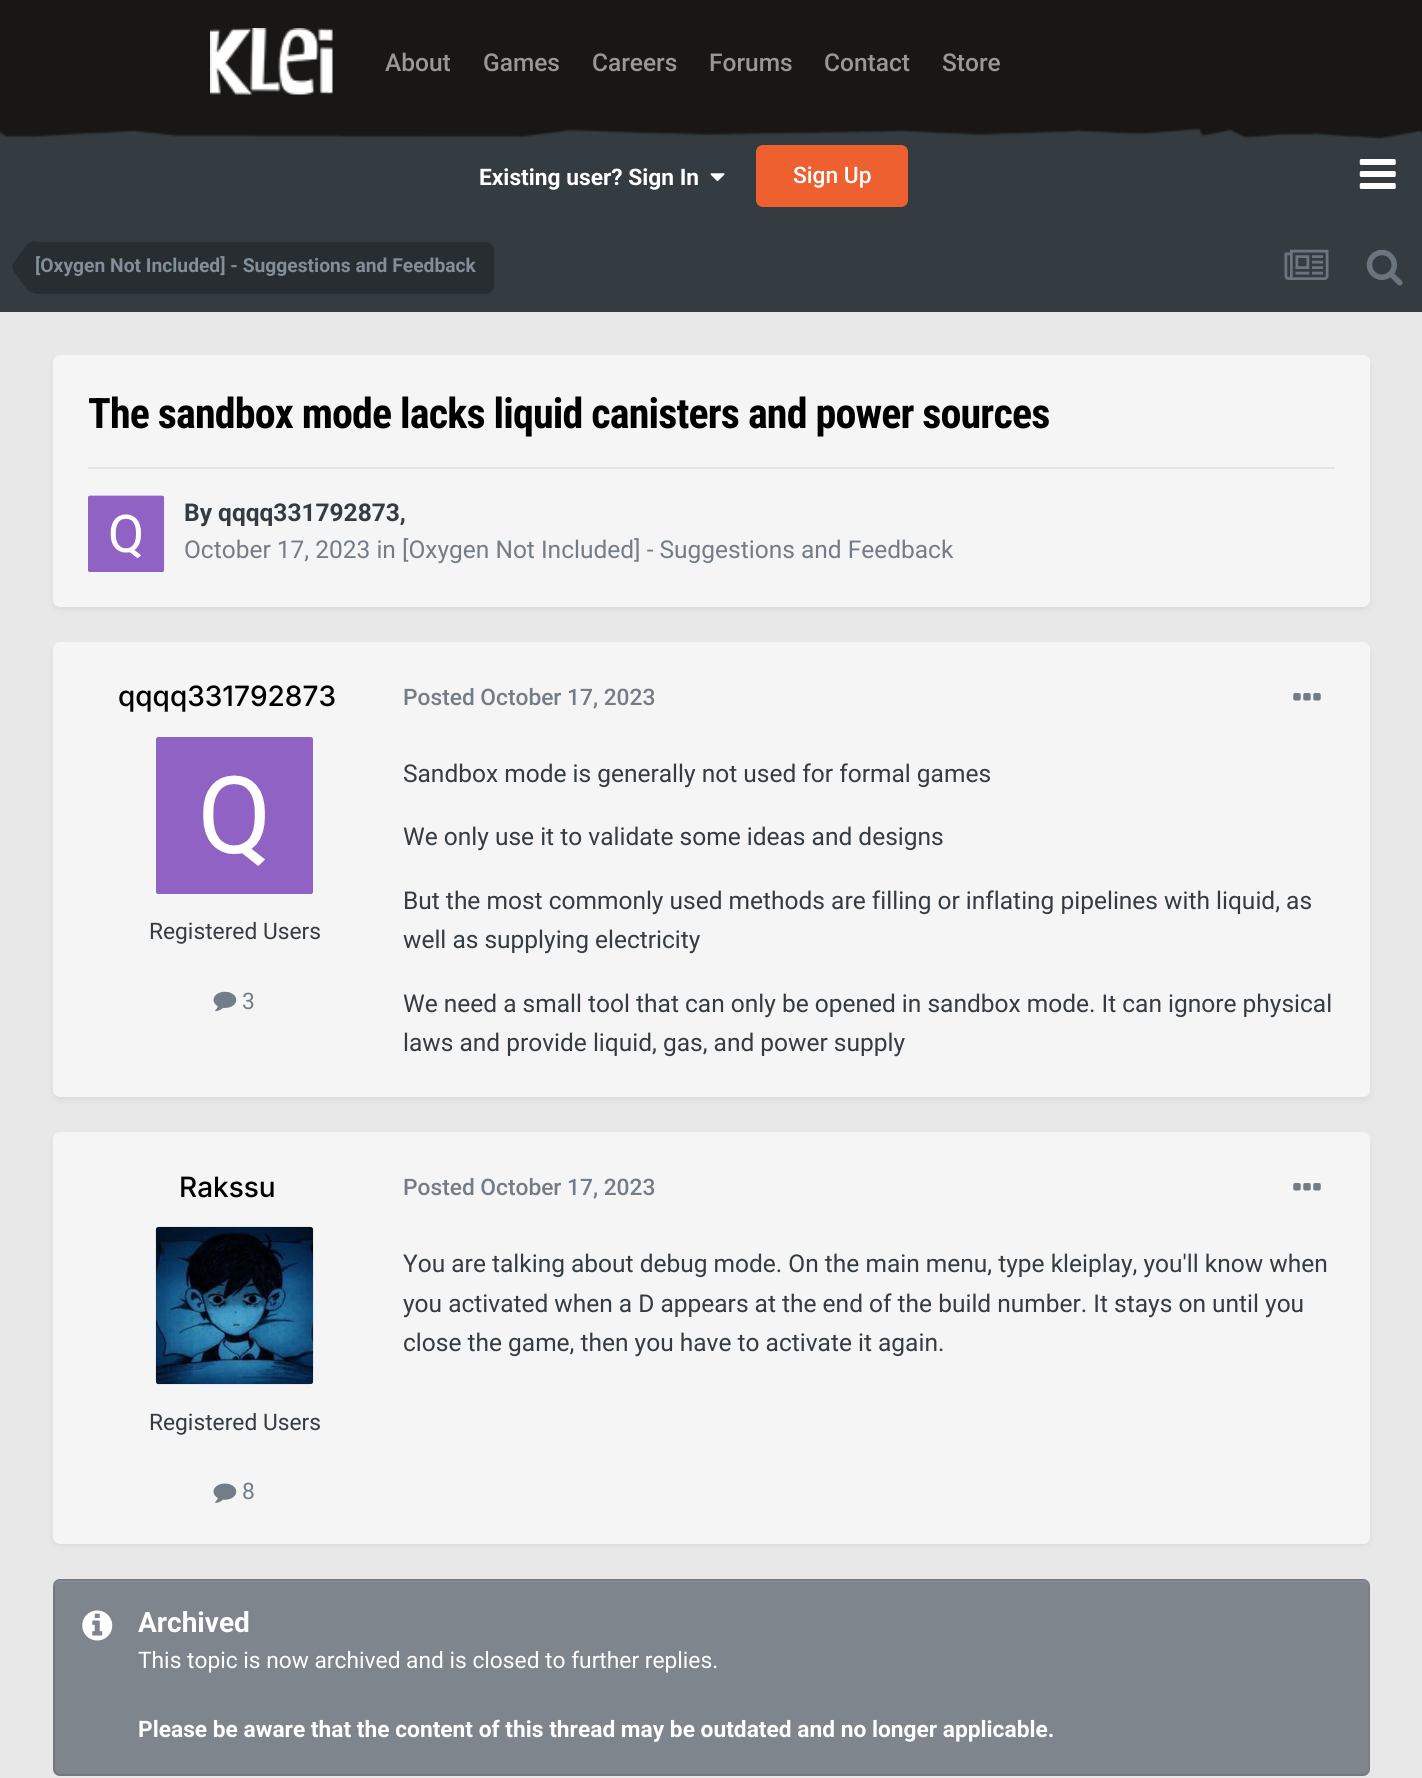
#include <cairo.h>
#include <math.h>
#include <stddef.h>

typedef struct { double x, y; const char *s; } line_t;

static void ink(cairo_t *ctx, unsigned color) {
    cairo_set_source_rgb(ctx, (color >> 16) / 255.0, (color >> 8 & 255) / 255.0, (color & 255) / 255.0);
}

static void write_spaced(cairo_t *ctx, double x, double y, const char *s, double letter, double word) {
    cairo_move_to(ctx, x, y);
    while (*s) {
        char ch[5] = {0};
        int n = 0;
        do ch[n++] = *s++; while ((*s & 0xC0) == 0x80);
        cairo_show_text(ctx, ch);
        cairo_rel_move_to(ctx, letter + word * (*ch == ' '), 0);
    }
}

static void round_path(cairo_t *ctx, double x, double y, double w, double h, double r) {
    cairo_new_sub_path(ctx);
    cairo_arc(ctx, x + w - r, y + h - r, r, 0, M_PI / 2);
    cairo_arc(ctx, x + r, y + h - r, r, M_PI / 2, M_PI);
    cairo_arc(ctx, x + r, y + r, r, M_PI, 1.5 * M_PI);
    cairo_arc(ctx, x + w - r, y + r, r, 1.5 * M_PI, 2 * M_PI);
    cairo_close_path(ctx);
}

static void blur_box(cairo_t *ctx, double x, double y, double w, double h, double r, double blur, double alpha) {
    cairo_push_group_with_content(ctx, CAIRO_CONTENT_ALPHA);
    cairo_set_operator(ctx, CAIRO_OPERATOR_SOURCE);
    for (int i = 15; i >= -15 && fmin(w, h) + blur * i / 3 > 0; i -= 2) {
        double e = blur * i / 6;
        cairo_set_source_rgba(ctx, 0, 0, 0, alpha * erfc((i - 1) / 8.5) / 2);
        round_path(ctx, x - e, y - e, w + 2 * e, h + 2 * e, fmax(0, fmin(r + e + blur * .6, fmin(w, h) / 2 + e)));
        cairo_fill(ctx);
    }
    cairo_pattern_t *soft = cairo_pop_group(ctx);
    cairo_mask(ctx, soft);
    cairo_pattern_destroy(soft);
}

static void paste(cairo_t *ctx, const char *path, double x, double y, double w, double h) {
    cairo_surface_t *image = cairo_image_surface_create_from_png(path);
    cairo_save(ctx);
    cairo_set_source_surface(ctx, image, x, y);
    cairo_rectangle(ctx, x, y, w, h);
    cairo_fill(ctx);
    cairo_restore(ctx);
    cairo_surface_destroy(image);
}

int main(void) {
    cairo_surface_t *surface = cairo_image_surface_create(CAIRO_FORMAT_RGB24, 1422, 1778);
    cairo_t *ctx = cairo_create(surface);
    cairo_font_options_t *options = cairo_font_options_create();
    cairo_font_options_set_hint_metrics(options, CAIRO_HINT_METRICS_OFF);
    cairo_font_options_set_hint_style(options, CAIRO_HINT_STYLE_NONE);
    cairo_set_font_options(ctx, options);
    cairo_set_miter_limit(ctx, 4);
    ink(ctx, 0x353C41);
    cairo_paint(ctx);
    ink(ctx, 0x181716);
    cairo_rectangle(ctx, 0, 0, 1422, 128);
    cairo_fill(ctx);
    paste(ctx, "media/1.png", 210, 28, 123, 67);
    cairo_select_font_face(ctx, "Roboto Medium", CAIRO_FONT_SLANT_NORMAL, CAIRO_FONT_WEIGHT_NORMAL);
    cairo_set_font_size(ctx, 24.5);
    ink(ctx, 0x989898);
    {
        static const line_t items[] = {
            {385, 71, "About"},
            {483, 71, "Games"},
            {592, 71, "Careers"},
            {709, 71, "Forums"},
            {824, 71, "Contact"},
            {942, 71, "Store"},
        };
        for (size_t i = 0; i < sizeof items / sizeof *items; i++) {
            cairo_move_to(ctx, items[i].x, items[i].y);
            cairo_show_text(ctx, items[i].s);
        }
    }
    paste(ctx, "media/2.png", 0, 128, 1422, 11);
    cairo_select_font_face(ctx, "Roboto", CAIRO_FONT_SLANT_NORMAL, CAIRO_FONT_WEIGHT_BOLD);
    cairo_set_font_size(ctx, 22.75);
    ink(ctx, 0xFFFFFF);
    cairo_move_to(ctx, 479, 185);
    cairo_show_text(ctx, "Existing user? Sign In");
    paste(ctx, "media/3.png", 710, 173, 15, 9);
    ink(ctx, 0xEF6030);
    round_path(ctx, 756, 145, 152, 62, 7);
    cairo_fill(ctx);
    cairo_select_font_face(ctx, "Roboto Medium", CAIRO_FONT_SLANT_NORMAL, CAIRO_FONT_WEIGHT_NORMAL);
    ink(ctx, 0xFFFFFF);
    cairo_move_to(ctx, 793, 183);
    cairo_show_text(ctx, "Sign Up");
    paste(ctx, "media/4.png", 1359, 159, 37, 30);
    ink(ctx, 0x282D31);
    cairo_new_path(ctx);
    cairo_move_to(ctx, 35, 242);
    cairo_line_to(ctx, 485, 242);
    cairo_curve_to(ctx, 490, 242, 494, 246, 494, 251);
    cairo_line_to(ctx, 494, 285);
    cairo_curve_to(ctx, 494, 290, 490, 294, 485, 294);
    cairo_line_to(ctx, 35, 294);
    cairo_close_path(ctx);
    cairo_fill(ctx);
    cairo_new_path(ctx);
    cairo_move_to(ctx, 12.5, 269.5);
    cairo_line_to(ctx, 12.5, 267);
    cairo_line_to(ctx, 35, 267);
    cairo_line_to(ctx, 35, 293);
    cairo_curve_to(ctx, 31, 293, 27.5, 291, 25, 287);
    cairo_close_path(ctx);
    cairo_move_to(ctx, 35, 241);
    cairo_line_to(ctx, 35, 267);
    cairo_line_to(ctx, 12.5, 267);
    cairo_line_to(ctx, 12.5, 264.5);
    cairo_line_to(ctx, 25, 247);
    cairo_curve_to(ctx, 27.5, 243, 31, 241, 35, 241);
    cairo_close_path(ctx);
    cairo_fill(ctx);
    cairo_select_font_face(ctx, "Roboto", CAIRO_FONT_SLANT_NORMAL, CAIRO_FONT_WEIGHT_BOLD);
    cairo_set_font_size(ctx, 19.25);
    ink(ctx, 0x828E99);
    cairo_move_to(ctx, 35, 272);
    cairo_show_text(ctx, "[Oxygen Not Included] - Suggestions and Feedback");
    paste(ctx, "media/5.png", 1284, 249, 45, 31);
    paste(ctx, "media/6.png", 1366, 249, 37, 37);
    ink(ctx, 0xE8E8E8);
    cairo_rectangle(ctx, 0, 312, 1422, 1466);
    cairo_fill(ctx);
    ink(ctx, 0x2D3748);
    blur_box(ctx, 54, 361, 1315, 248, 5, 3.5, 0.1);
    ink(ctx, 0xF5F5F5);
    round_path(ctx, 53, 355, 1317, 252, 7);
    cairo_fill(ctx);
    cairo_select_font_face(ctx, "Roboto Condensed", CAIRO_FONT_SLANT_NORMAL, CAIRO_FONT_WEIGHT_BOLD);
    cairo_set_font_size(ctx, 42);
    ink(ctx, 0x000000);
    write_spaced(ctx, 88, 428, "The sandbox mode lacks liquid canisters and power sources", -0.85, 0);
    ink(ctx, 0xE6E6E7);
    cairo_rectangle(ctx, 88, 467, 1247, 2);
    cairo_fill(ctx);
    ink(ctx, 0xFFFFFF);
    round_path(ctx, 88, 495, 77, 77, 4);
    cairo_fill(ctx);
    paste(ctx, "media/7.png", 88, 495, 77, 77);
    cairo_select_font_face(ctx, "Roboto", CAIRO_FONT_SLANT_NORMAL, CAIRO_FONT_WEIGHT_BOLD);
    cairo_set_font_size(ctx, 24.5);
    ink(ctx, 0x353C41);
    cairo_move_to(ctx, 184, 521);
    cairo_show_text(ctx, "By qqqq331792873,");
    cairo_select_font_face(ctx, "Roboto", CAIRO_FONT_SLANT_NORMAL, CAIRO_FONT_WEIGHT_NORMAL);
    ink(ctx, 0x737D87);
    cairo_move_to(ctx, 184, 558);
    cairo_show_text(ctx, "October 17, 2023 in [Oxygen Not Included] - Suggestions and Feedback");
    ink(ctx, 0x2D3748);
    blur_box(ctx, 54, 648, 1315, 451, 5, 3.5, 0.1);
    ink(ctx, 0xF5F5F5);
    round_path(ctx, 53, 642, 1317, 455, 7);
    cairo_fill(ctx);
    cairo_select_font_face(ctx, "Inter Medium", CAIRO_FONT_SLANT_NORMAL, CAIRO_FONT_WEIGHT_NORMAL);
    cairo_set_font_size(ctx, 28);
    ink(ctx, 0x000000);
    cairo_move_to(ctx, 118, 706);
    cairo_show_text(ctx, "qqqq331792873");
    paste(ctx, "media/8.png", 156, 737, 157, 157);
    cairo_select_font_face(ctx, "Roboto", CAIRO_FONT_SLANT_NORMAL, CAIRO_FONT_WEIGHT_NORMAL);
    cairo_set_font_size(ctx, 22.75);
    ink(ctx, 0x353C41);
    cairo_move_to(ctx, 149, 939);
    cairo_show_text(ctx, "Registered Users");
    paste(ctx, "media/9.png", 213, 991, 24, 21);
    ink(ctx, 0x737D87);
    cairo_move_to(ctx, 242, 1009);
    cairo_show_text(ctx, "3");
    cairo_select_font_face(ctx, "Roboto Medium", CAIRO_FONT_SLANT_NORMAL, CAIRO_FONT_WEIGHT_NORMAL);
    cairo_move_to(ctx, 403, 705);
    cairo_show_text(ctx, "Posted October 17, 2023");
    paste(ctx, "media/10.png", 1293, 693, 28, 8);
    cairo_select_font_face(ctx, "Roboto", CAIRO_FONT_SLANT_NORMAL, CAIRO_FONT_WEIGHT_NORMAL);
    cairo_set_font_size(ctx, 24.5);
    ink(ctx, 0x353C41);
    {
        static const line_t items[] = {
            {403, 782, "Sandbox mode is generally not used for formal games"},
            {403, 845, "We only use it to validate some ideas and designs"},
            {403, 909, "But the most commonly used methods are filling or inflating pipelines with liquid, as"},
            {403, 948, "well as supplying electricity"},
            {403, 1012, "We need a small tool that can only be opened in sandbox mode. It can ignore physical"},
            {403, 1051, "laws and provide liquid, gas, and power supply"},
        };
        for (size_t i = 0; i < sizeof items / sizeof *items; i++) {
            cairo_move_to(ctx, items[i].x, items[i].y);
            cairo_show_text(ctx, items[i].s);
        }
    }
    ink(ctx, 0x2D3748);
    blur_box(ctx, 54, 1138, 1315, 407, 5, 3.5, 0.1);
    ink(ctx, 0xF5F5F5);
    round_path(ctx, 53, 1132, 1317, 412, 7);
    cairo_fill(ctx);
    cairo_select_font_face(ctx, "Inter Medium", CAIRO_FONT_SLANT_NORMAL, CAIRO_FONT_WEIGHT_NORMAL);
    cairo_set_font_size(ctx, 28);
    ink(ctx, 0x000000);
    cairo_move_to(ctx, 179, 1197);
    cairo_show_text(ctx, "Rakssu");
    paste(ctx, "media/11.png", 155, 1226, 159, 159);
    cairo_select_font_face(ctx, "Roboto", CAIRO_FONT_SLANT_NORMAL, CAIRO_FONT_WEIGHT_NORMAL);
    cairo_set_font_size(ctx, 22.75);
    ink(ctx, 0x353C41);
    cairo_move_to(ctx, 149, 1430);
    cairo_show_text(ctx, "Registered Users");
    paste(ctx, "media/12.png", 213, 1483, 24, 20);
    ink(ctx, 0x737D87);
    cairo_move_to(ctx, 242, 1499);
    cairo_show_text(ctx, "8");
    cairo_select_font_face(ctx, "Roboto Medium", CAIRO_FONT_SLANT_NORMAL, CAIRO_FONT_WEIGHT_NORMAL);
    cairo_move_to(ctx, 403, 1195);
    cairo_show_text(ctx, "Posted October 17, 2023");
    paste(ctx, "media/10.png", 1293, 1183, 28, 8);
    cairo_select_font_face(ctx, "Roboto", CAIRO_FONT_SLANT_NORMAL, CAIRO_FONT_WEIGHT_NORMAL);
    cairo_set_font_size(ctx, 24.5);
    ink(ctx, 0x353C41);
    {
        static const line_t items[] = {
            {403, 1272, "You are talking about debug mode. On the main menu, type kleiplay, you'll know when"},
            {403, 1312, "you activated when a D appears at the end of the build number. It stays on until you"},
            {403, 1351, "close the game, then you have to activate it again."},
        };
        for (size_t i = 0; i < sizeof items / sizeof *items; i++) {
            cairo_move_to(ctx, items[i].x, items[i].y);
            cairo_show_text(ctx, items[i].s);
        }
    }
    ink(ctx, 0x7F858D);
    round_path(ctx, 53, 1579, 1317, 197, 7);
    cairo_fill(ctx);
    ink(ctx, 0x8C9198);
    cairo_new_path(ctx);
    cairo_move_to(ctx, 60, 1582);
    cairo_line_to(ctx, 1363, 1582);
    cairo_curve_to(ctx, 1366, 1582, 1368, 1584, 1368, 1587);
    cairo_line_to(ctx, 1368, 1771);
    cairo_line_to(ctx, 1367, 1774);
    cairo_curve_to(ctx, 1368, 1773, 1369, 1771, 1369, 1770);
    cairo_line_to(ctx, 1369, 1585);
    cairo_curve_to(ctx, 1369, 1582, 1367, 1580, 1364, 1580);
    cairo_line_to(ctx, 59, 1580);
    cairo_curve_to(ctx, 56, 1580, 54, 1582, 54, 1585);
    cairo_line_to(ctx, 54, 1587);
    cairo_curve_to(ctx, 54, 1584, 57, 1582, 60, 1582);
    cairo_close_path(ctx);
    cairo_fill(ctx);
    round_path(ctx, 54, 1580, 1315, 195, 6);
    cairo_set_source_rgba(ctx, 0, 0, 0, 0.1);
    cairo_stroke(ctx);
    paste(ctx, "media/13.png", 82, 1610, 31, 31);
    cairo_select_font_face(ctx, "Roboto", CAIRO_FONT_SLANT_NORMAL, CAIRO_FONT_WEIGHT_BOLD);
    cairo_set_font_size(ctx, 28);
    ink(ctx, 0xFFFFFF);
    cairo_move_to(ctx, 138, 1632);
    cairo_show_text(ctx, "Archived");
    cairo_select_font_face(ctx, "Roboto", CAIRO_FONT_SLANT_NORMAL, CAIRO_FONT_WEIGHT_NORMAL);
    cairo_set_font_size(ctx, 22.75);
    cairo_move_to(ctx, 138, 1668);
    cairo_show_text(ctx, "This topic is now archived and is closed to further replies.");
    cairo_select_font_face(ctx, "Roboto", CAIRO_FONT_SLANT_NORMAL, CAIRO_FONT_WEIGHT_BOLD);
    cairo_move_to(ctx, 138, 1737);
    cairo_show_text(ctx, "Please be aware that the content of this thread may be outdated and no longer applicable.");
    cairo_surface_write_to_png(surface, "image.png");
    cairo_font_options_destroy(options);
    cairo_destroy(ctx);
    cairo_surface_destroy(surface);
    return 0;
}
